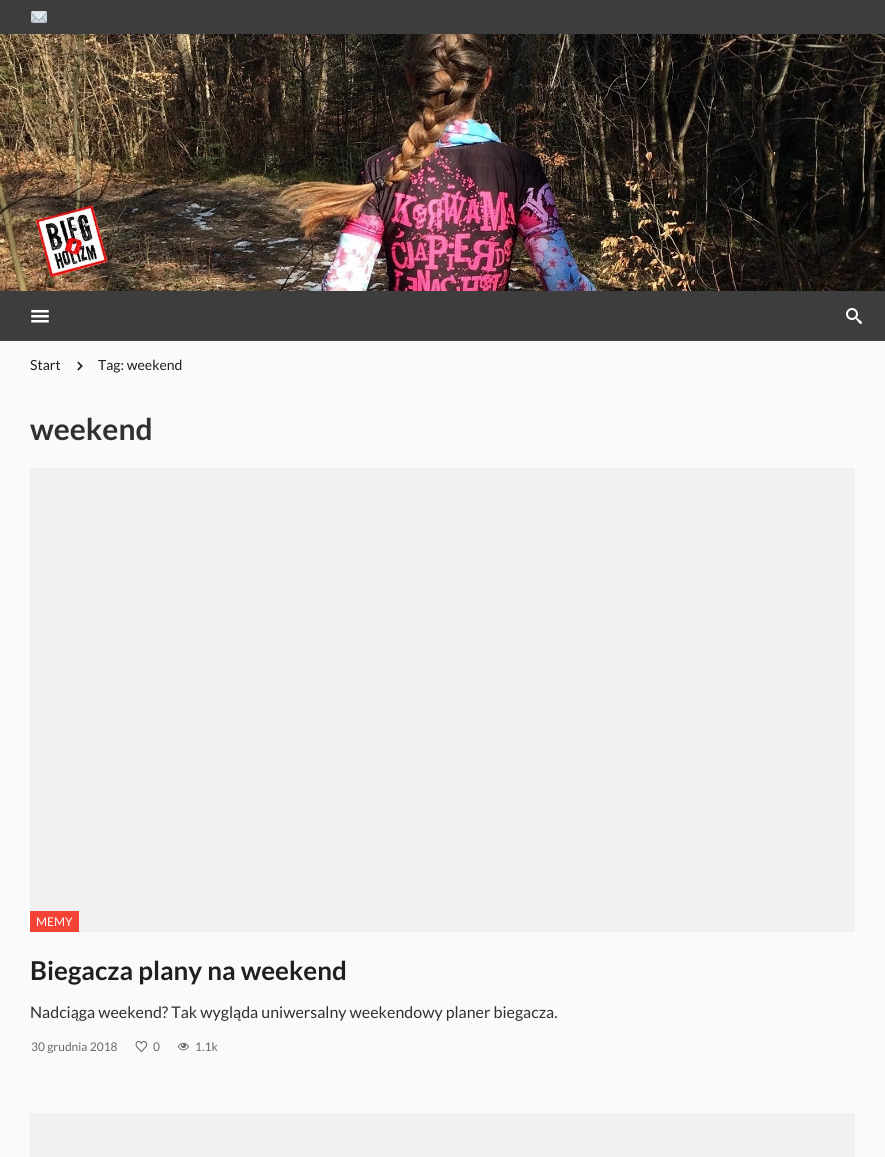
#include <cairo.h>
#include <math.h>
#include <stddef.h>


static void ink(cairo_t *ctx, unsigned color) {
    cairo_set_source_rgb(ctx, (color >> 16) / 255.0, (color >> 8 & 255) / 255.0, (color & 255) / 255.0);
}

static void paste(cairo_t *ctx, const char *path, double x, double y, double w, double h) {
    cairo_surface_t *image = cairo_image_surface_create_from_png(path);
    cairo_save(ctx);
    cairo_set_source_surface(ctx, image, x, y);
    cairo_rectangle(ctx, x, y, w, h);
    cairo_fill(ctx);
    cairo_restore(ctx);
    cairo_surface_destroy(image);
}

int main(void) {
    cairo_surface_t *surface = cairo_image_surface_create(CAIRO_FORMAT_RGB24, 885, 1157);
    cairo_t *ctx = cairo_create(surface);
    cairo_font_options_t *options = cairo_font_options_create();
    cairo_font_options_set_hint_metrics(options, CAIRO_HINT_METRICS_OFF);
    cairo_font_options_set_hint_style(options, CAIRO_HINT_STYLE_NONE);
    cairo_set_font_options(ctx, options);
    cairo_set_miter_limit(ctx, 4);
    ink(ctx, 0xFAFAFA);
    cairo_paint(ctx);
    ink(ctx, 0x3D3D3D);
    cairo_rectangle(ctx, 0, 0, 885, 34);
    cairo_fill(ctx);
    paste(ctx, "media/1.png", 31, 11, 16, 12);
    paste(ctx, "media/2.png", 0, 34, 885, 257);
    cairo_rectangle(ctx, 0, 291, 885, 50);
    cairo_fill(ctx);
    paste(ctx, "media/3.png", 31, 310, 18, 13);
    paste(ctx, "media/4.png", 846, 308, 16, 16);
    cairo_select_font_face(ctx, "Lato", CAIRO_FONT_SLANT_NORMAL, CAIRO_FONT_WEIGHT_NORMAL);
    cairo_set_font_size(ctx, 14);
    ink(ctx, 0x1F1F1F);
    cairo_move_to(ctx, 30, 370);
    cairo_show_text(ctx, "Start");
    paste(ctx, "media/5.png", 77, 361, 6, 10);
    cairo_move_to(ctx, 98, 370);
    cairo_show_text(ctx, "Tag: weekend");
    cairo_select_font_face(ctx, "Lato", CAIRO_FONT_SLANT_NORMAL, CAIRO_FONT_WEIGHT_BOLD);
    cairo_set_font_size(ctx, 30);
    ink(ctx, 0x303030);
    cairo_move_to(ctx, 30, 440);
    cairo_show_text(ctx, "weekend");
    ink(ctx, 0xF1F1F1);
    cairo_rectangle(ctx, 30, 468, 825, 464);
    cairo_fill(ctx);
    ink(ctx, 0xF44336);
    cairo_rectangle(ctx, 30, 911, 49, 21);
    cairo_fill(ctx);
    cairo_select_font_face(ctx, "Lato", CAIRO_FONT_SLANT_NORMAL, CAIRO_FONT_WEIGHT_NORMAL);
    cairo_set_font_size(ctx, 12);
    ink(ctx, 0xFFFFFF);
    cairo_move_to(ctx, 36, 926);
    cairo_show_text(ctx, "MEMY");
    cairo_select_font_face(ctx, "Lato", CAIRO_FONT_SLANT_NORMAL, CAIRO_FONT_WEIGHT_BOLD);
    cairo_set_font_size(ctx, 26);
    ink(ctx, 0x1F1F1F);
    cairo_move_to(ctx, 30, 980);
    cairo_show_text(ctx, "Biegacza plany na weekend");
    cairo_select_font_face(ctx, "Lato", CAIRO_FONT_SLANT_NORMAL, CAIRO_FONT_WEIGHT_NORMAL);
    cairo_set_font_size(ctx, 16);
    ink(ctx, 0x303030);
    cairo_move_to(ctx, 30, 1018);
    cairo_show_text(ctx, "Nadciąga weekend? Tak wygląda uniwersalny weekendowy planer biegacza.");
    cairo_set_font_size(ctx, 12);
    ink(ctx, 0x6B6A6A);
    cairo_move_to(ctx, 31, 1051);
    cairo_show_text(ctx, "30 grudnia 2018");
    paste(ctx, "media/6.png", 135, 1040, 13, 13);
    cairo_move_to(ctx, 153, 1051);
    cairo_show_text(ctx, "0");
    paste(ctx, "media/7.png", 177, 1042, 12, 9);
    cairo_move_to(ctx, 195, 1051);
    cairo_show_text(ctx, "1.1k");
    ink(ctx, 0xF1F1F1);
    cairo_rectangle(ctx, 30, 1113, 825, 44);
    cairo_fill(ctx);
    cairo_surface_write_to_png(surface, "image.png");
    cairo_font_options_destroy(options);
    cairo_destroy(ctx);
    cairo_surface_destroy(surface);
    return 0;
}
